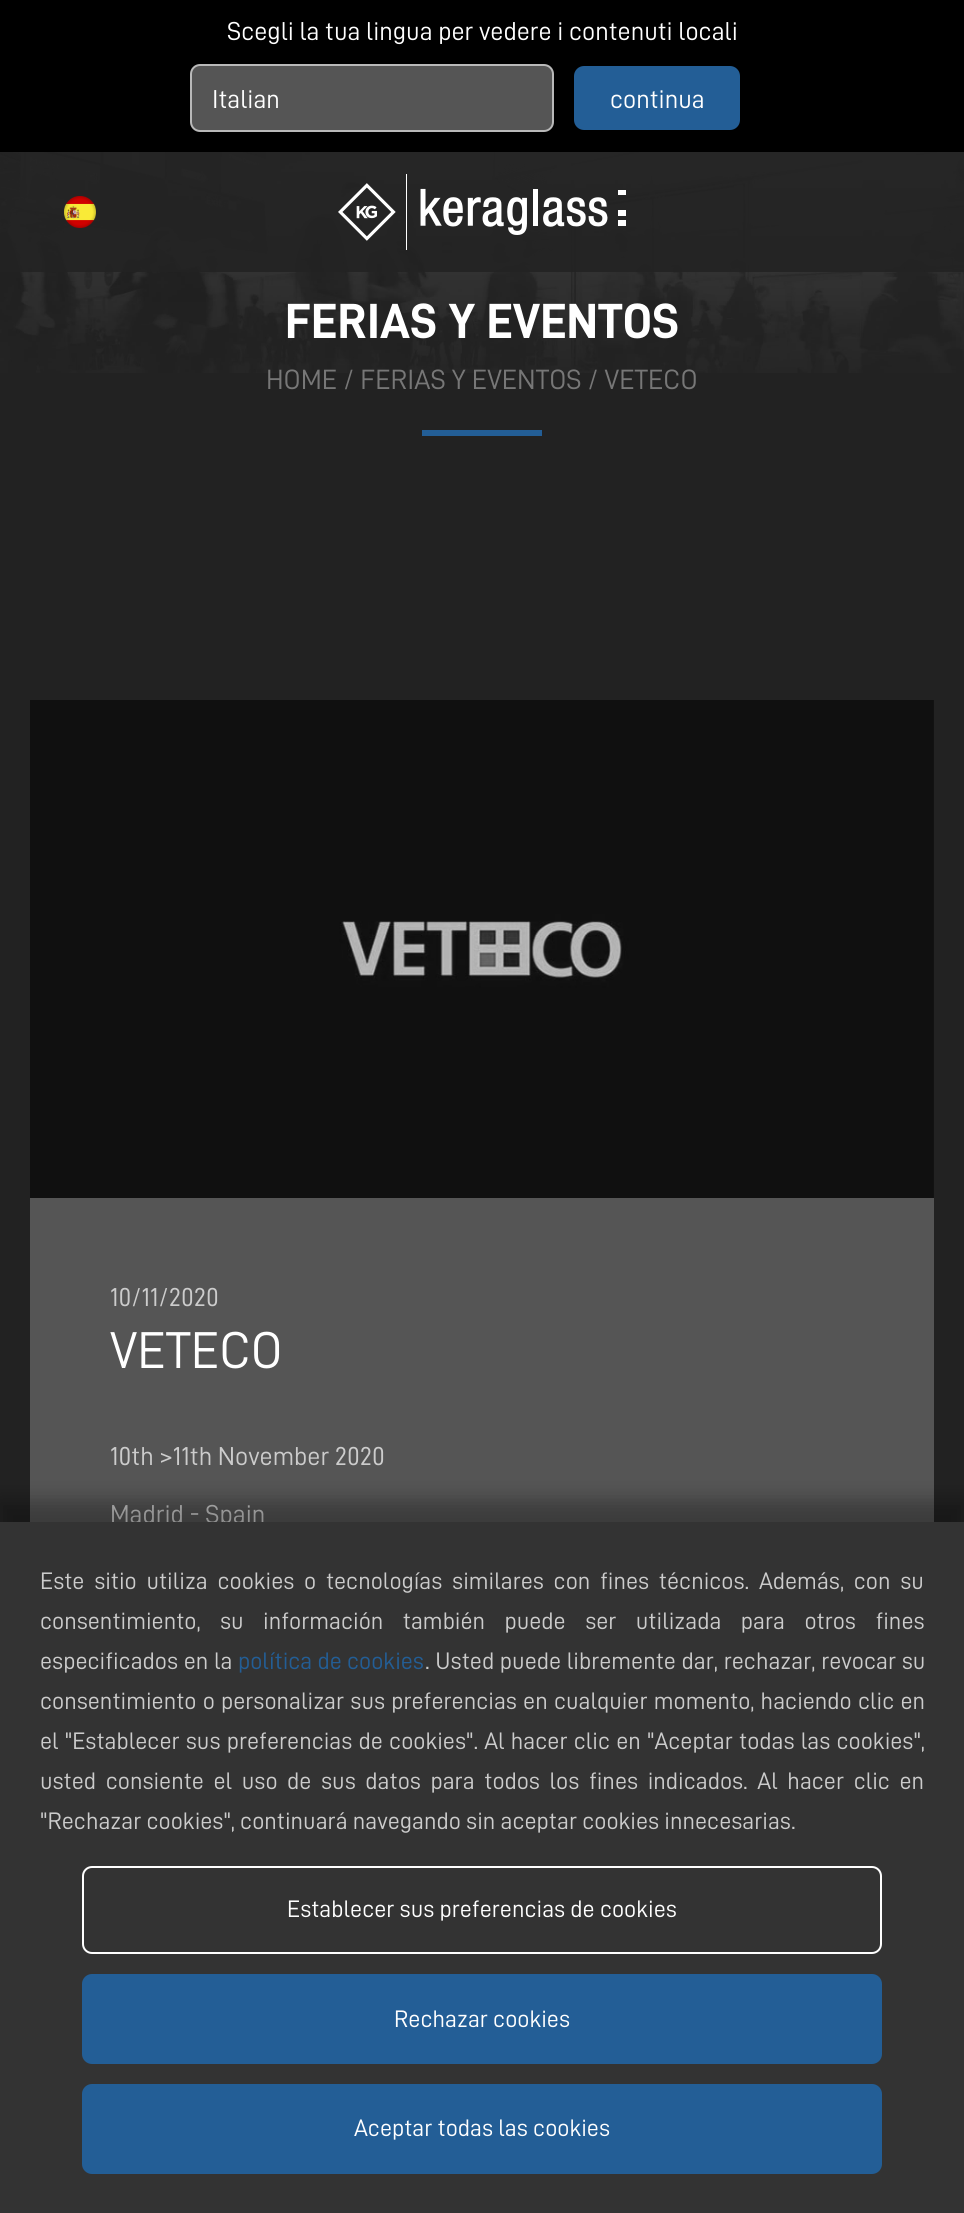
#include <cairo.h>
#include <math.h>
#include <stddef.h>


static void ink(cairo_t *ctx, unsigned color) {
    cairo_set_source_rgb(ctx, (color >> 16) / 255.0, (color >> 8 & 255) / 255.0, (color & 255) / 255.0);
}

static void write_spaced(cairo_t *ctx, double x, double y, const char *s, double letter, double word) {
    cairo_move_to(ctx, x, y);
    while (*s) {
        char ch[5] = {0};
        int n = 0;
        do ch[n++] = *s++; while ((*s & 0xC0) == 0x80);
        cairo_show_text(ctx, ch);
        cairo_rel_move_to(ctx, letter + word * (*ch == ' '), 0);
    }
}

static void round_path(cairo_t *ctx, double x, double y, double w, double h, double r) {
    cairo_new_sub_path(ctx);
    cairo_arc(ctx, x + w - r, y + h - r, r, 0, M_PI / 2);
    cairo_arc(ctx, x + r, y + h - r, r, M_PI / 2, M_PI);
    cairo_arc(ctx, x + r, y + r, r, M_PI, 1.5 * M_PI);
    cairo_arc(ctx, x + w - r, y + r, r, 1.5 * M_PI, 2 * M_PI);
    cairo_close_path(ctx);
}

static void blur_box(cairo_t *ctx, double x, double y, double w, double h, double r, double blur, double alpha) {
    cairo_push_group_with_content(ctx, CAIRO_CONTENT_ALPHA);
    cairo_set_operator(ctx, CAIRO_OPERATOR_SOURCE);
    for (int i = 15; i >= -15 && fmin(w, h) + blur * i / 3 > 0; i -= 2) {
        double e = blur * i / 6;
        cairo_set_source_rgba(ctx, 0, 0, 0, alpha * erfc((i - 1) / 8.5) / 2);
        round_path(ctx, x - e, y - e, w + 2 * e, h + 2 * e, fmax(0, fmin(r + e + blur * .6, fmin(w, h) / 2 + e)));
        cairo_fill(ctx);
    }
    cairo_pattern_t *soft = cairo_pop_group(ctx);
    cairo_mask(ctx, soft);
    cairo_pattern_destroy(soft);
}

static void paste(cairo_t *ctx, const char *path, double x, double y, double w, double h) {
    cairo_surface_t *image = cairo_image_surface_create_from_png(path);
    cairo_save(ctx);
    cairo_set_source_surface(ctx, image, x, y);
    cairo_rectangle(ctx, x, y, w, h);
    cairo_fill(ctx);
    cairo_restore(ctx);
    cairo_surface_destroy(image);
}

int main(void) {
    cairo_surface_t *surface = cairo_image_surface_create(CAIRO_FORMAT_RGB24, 964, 2213);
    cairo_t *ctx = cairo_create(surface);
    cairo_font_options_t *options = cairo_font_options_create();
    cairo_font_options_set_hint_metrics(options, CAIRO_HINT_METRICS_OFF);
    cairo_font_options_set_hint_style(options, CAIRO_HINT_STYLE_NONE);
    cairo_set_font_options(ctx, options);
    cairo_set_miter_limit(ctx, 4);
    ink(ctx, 0x222222);
    cairo_paint(ctx);
    paste(ctx, "media/3.png", 0, 152, 964, 221);
    cairo_set_source_rgba(ctx, 0.137, 0.137, 0.137, 0.9);
    cairo_rectangle(ctx, 0, 152, 964, 120);
    cairo_fill(ctx);
    ink(ctx, 0x000000);
    cairo_rectangle(ctx, 0, 0, 964, 152);
    cairo_fill(ctx);
    cairo_select_font_face(ctx, "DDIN", CAIRO_FONT_SLANT_NORMAL, CAIRO_FONT_WEIGHT_NORMAL);
    cairo_set_font_size(ctx, 26);
    ink(ctx, 0xFFFFFF);
    cairo_move_to(ctx, 227, 40);
    cairo_show_text(ctx, "Scegli la tua lingua per vedere i contenuti locali");
    ink(ctx, 0x555555);
    round_path(ctx, 191, 65, 362, 66, 9);
    cairo_fill_preserve(ctx);
    ink(ctx, 0xB9B9B9);
    cairo_stroke(ctx);
    ink(ctx, 0xFFFFFF);
    cairo_move_to(ctx, 212, 108);
    cairo_show_text(ctx, "Italian");
    ink(ctx, 0x235E96);
    round_path(ctx, 574, 66, 166, 64, 10);
    cairo_fill(ctx);
    ink(ctx, 0xFFFFFF);
    cairo_move_to(ctx, 610, 108);
    cairo_show_text(ctx, "continua");
    paste(ctx, "media/1.png", 64, 196, 32, 32);
    paste(ctx, "media/2.png", 338, 174, 288, 76);
    cairo_select_font_face(ctx, "DDIN", CAIRO_FONT_SLANT_NORMAL, CAIRO_FONT_WEIGHT_BOLD);
    cairo_set_font_size(ctx, 49.5);
    cairo_move_to(ctx, 285, 338);
    cairo_show_text(ctx, "FERIAS Y EVENTOS");
    cairo_select_font_face(ctx, "DDIN", CAIRO_FONT_SLANT_NORMAL, CAIRO_FONT_WEIGHT_NORMAL);
    cairo_set_font_size(ctx, 28);
    ink(ctx, 0x777777);
    cairo_move_to(ctx, 266, 389);
    cairo_show_text(ctx, "HOME / FERIAS Y EVENTOS / VETECO");
    ink(ctx, 0x235E96);
    cairo_rectangle(ctx, 422, 430, 120, 6);
    cairo_fill(ctx);
    paste(ctx, "media/4.png", 30, 700, 904, 498);
    ink(ctx, 0x555555);
    cairo_rectangle(ctx, 30, 1198, 904, 324);
    cairo_fill(ctx);
    cairo_set_font_size(ctx, 26);
    ink(ctx, 0xCCCCCC);
    cairo_move_to(ctx, 110, 1306);
    cairo_show_text(ctx, "10/11/2020");
    cairo_set_font_size(ctx, 52);
    ink(ctx, 0xFFFFFF);
    cairo_move_to(ctx, 110, 1368);
    cairo_show_text(ctx, "VETECO");
    cairo_set_font_size(ctx, 26);
    ink(ctx, 0xCCCCCC);
    cairo_move_to(ctx, 110, 1465);
    cairo_show_text(ctx, "10th >11th November 2020");
    cairo_move_to(ctx, 110, 1523);
    cairo_show_text(ctx, "Madrid - Spain");
    ink(ctx, 0x000000);
    blur_box(ctx, -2, 1500, 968, 696, 0, 10, 0.3);
    ink(ctx, 0x333333);
    cairo_rectangle(ctx, 0, 1522, 964, 691);
    cairo_fill(ctx);
    cairo_set_font_size(ctx, 24);
    ink(ctx, 0xCCCCCC);
    write_spaced(ctx, 40, 1589, "Este sitio utiliza cookies o tecnologías similares con fines técnicos. Además, con su", 0, 4.5);
    write_spaced(ctx, 40, 1629, "consentimiento, su información también puede ser utilizada para otros fines", 0, 14.25);
    write_spaced(ctx, 40, 1669, "especificados en la", 0, 0.5);
    ink(ctx, 0x235E96);
    cairo_move_to(ctx, 238, 1669);
    cairo_show_text(ctx, "política de cookies");
    ink(ctx, 0xCCCCCC);
    write_spaced(ctx, 425, 1669, ". Usted puede libremente dar, rechazar, revocar su", 0, 0.5);
    write_spaced(ctx, 40, 1709, "consentimiento o personalizar sus preferencias en cualquier momento, haciendo clic en", 0, 1);
    write_spaced(ctx, 40, 1749, "el \"Establecer sus preferencias de cookies\". Al hacer clic en \"Aceptar todas las cookies\",", 0, 1);
    write_spaced(ctx, 40, 1789, "usted consiente el uso de sus datos para todos los fines indicados. Al hacer clic en", 0, 4.4);
    cairo_move_to(ctx, 40, 1829);
    cairo_show_text(ctx, "\"Rechazar cookies\", continuará navegando sin aceptar cookies innecesarias.");
    round_path(ctx, 83, 1867, 798, 86, 9);
    ink(ctx, 0xFFFFFF);
    cairo_stroke(ctx);
    cairo_move_to(ctx, 287, 1917);
    cairo_show_text(ctx, "Establecer sus preferencias de cookies");
    ink(ctx, 0x235E96);
    round_path(ctx, 83, 1975, 798, 88, 9);
    cairo_fill_preserve(ctx);
    cairo_stroke(ctx);
    ink(ctx, 0xFFFFFF);
    cairo_move_to(ctx, 394, 2027);
    cairo_show_text(ctx, "Rechazar cookies");
    ink(ctx, 0x235E96);
    round_path(ctx, 83, 2085, 798, 88, 9);
    cairo_fill_preserve(ctx);
    cairo_stroke(ctx);
    ink(ctx, 0xFFFFFF);
    cairo_move_to(ctx, 354, 2136);
    cairo_show_text(ctx, "Aceptar todas las cookies");
    cairo_surface_write_to_png(surface, "image.png");
    cairo_font_options_destroy(options);
    cairo_destroy(ctx);
    cairo_surface_destroy(surface);
    return 0;
}
